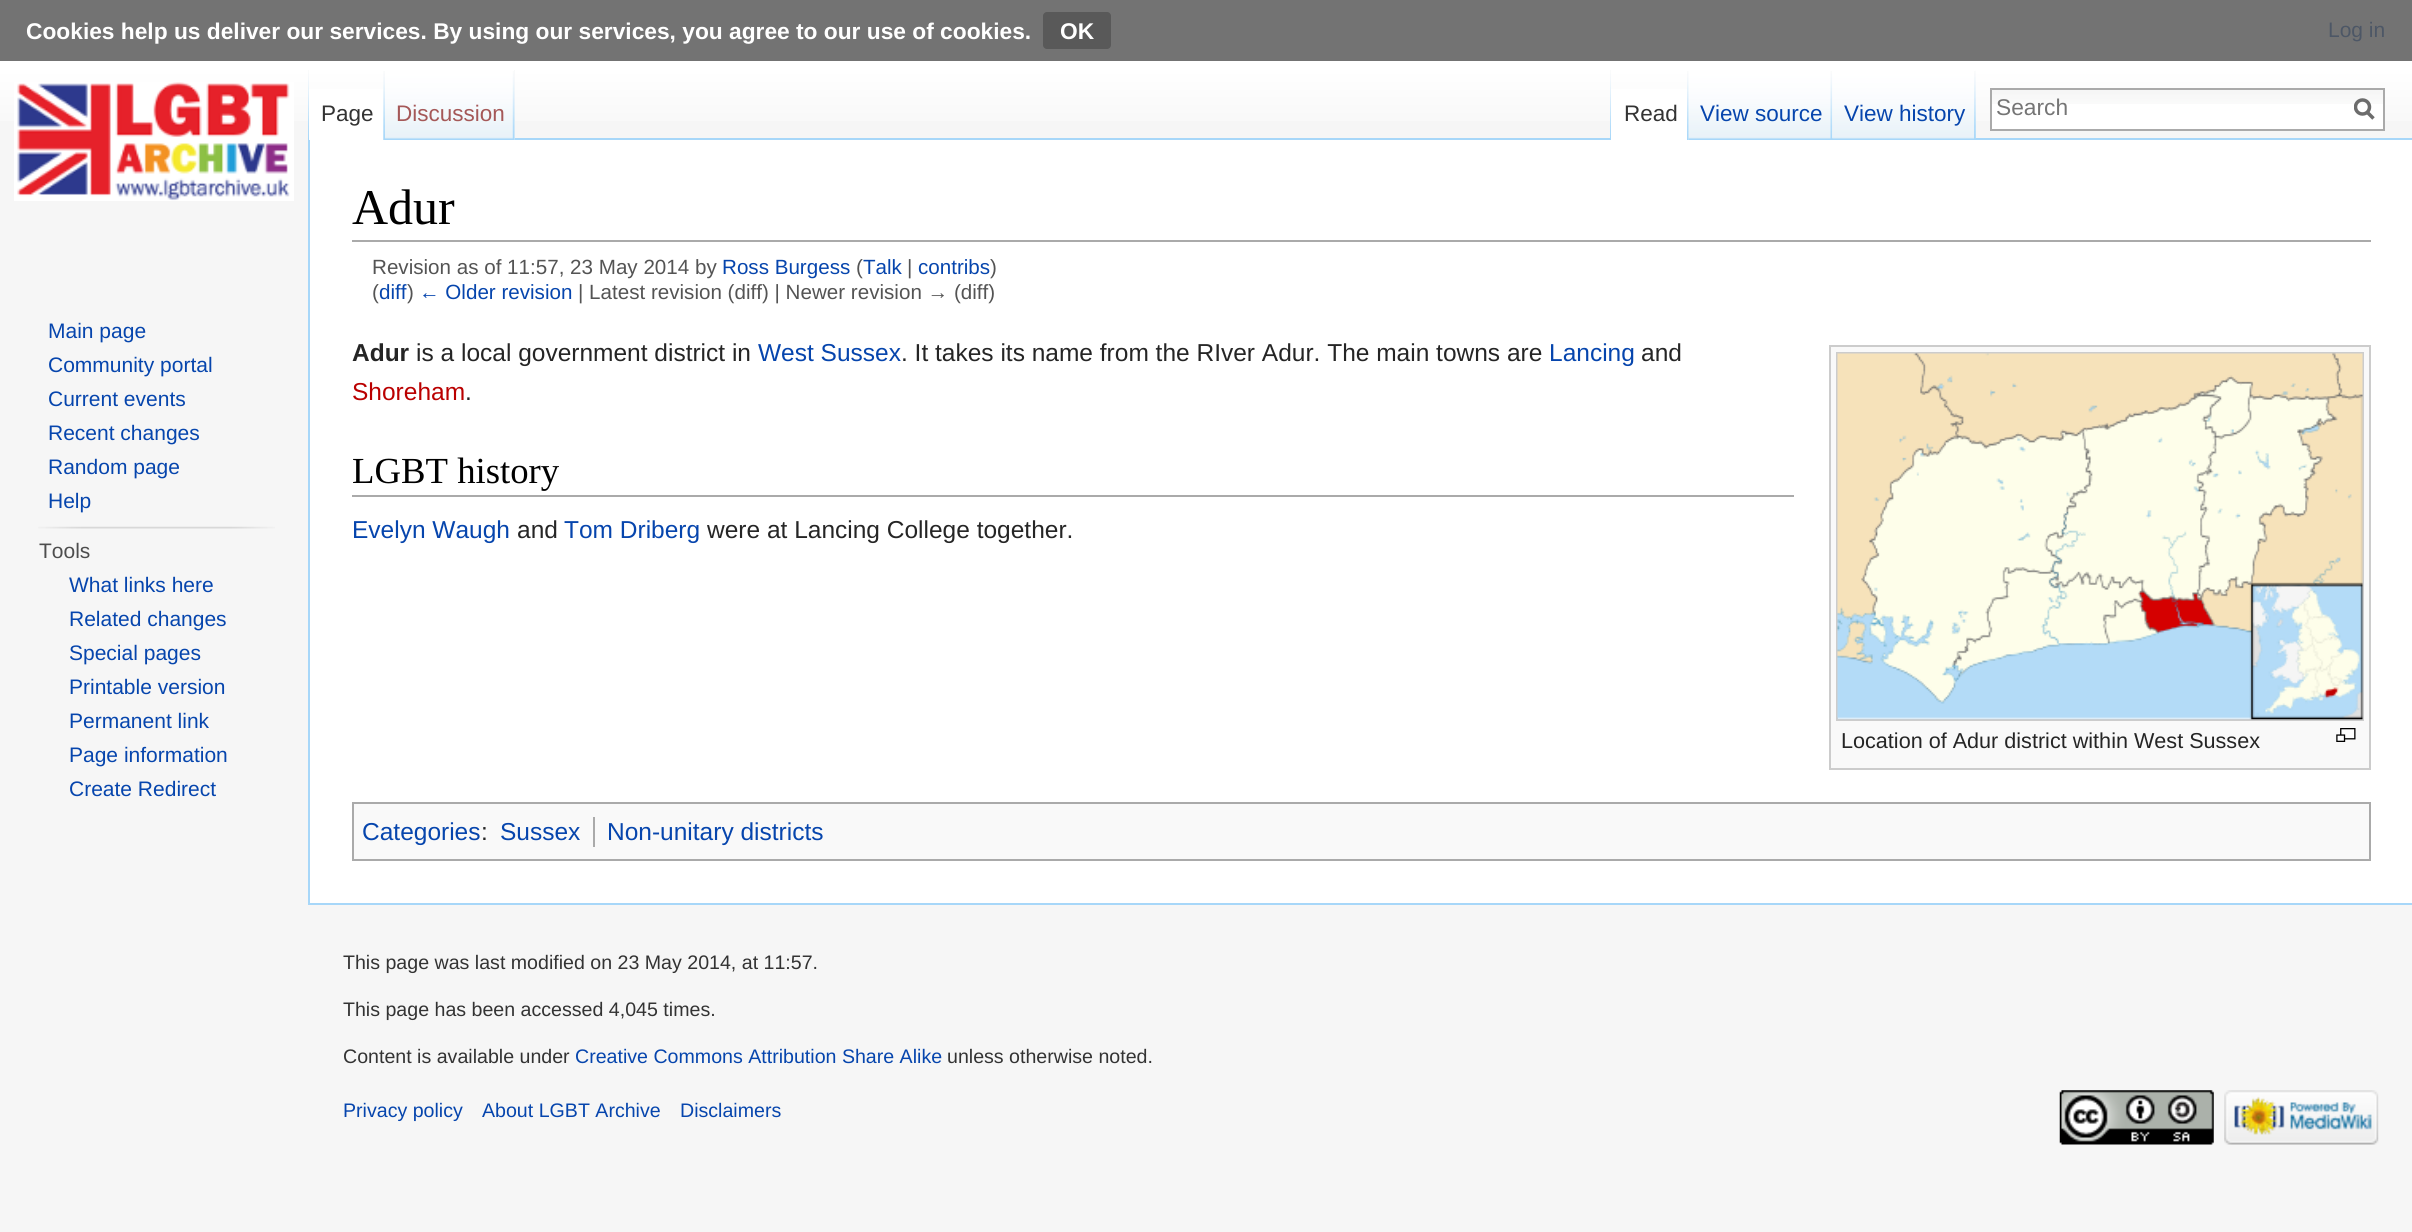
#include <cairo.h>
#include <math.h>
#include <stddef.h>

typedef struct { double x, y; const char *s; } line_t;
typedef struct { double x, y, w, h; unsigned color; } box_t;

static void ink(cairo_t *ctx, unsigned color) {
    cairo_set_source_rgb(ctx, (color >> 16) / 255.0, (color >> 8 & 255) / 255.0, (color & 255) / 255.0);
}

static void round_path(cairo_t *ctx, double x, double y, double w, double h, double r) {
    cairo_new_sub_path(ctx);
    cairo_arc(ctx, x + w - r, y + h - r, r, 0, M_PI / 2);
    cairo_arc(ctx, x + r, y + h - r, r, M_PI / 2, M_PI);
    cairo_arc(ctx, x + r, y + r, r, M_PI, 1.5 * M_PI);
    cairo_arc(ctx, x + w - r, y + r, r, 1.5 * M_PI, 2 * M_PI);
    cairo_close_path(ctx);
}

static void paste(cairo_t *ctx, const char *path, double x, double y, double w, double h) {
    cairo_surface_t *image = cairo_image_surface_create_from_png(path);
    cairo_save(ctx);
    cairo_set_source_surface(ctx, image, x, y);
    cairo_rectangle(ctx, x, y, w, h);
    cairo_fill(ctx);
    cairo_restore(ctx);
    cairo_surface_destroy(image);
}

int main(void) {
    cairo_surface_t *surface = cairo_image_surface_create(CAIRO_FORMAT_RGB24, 2412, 1232);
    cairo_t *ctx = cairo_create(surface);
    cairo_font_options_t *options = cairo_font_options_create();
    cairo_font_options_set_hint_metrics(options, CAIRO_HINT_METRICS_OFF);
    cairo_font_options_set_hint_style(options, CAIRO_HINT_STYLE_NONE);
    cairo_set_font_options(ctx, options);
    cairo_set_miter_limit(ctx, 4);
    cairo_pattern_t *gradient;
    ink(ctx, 0xF6F6F6);
    cairo_paint(ctx);
    gradient = cairo_pattern_create_linear(1207, 0, 1207, 140);
    cairo_pattern_add_color_stop_rgba(gradient, 0.5, 1, 1, 1, 1);
    cairo_pattern_add_color_stop_rgba(gradient, 1, 0.965, 0.965, 0.965, 1);
    cairo_set_source(ctx, gradient);
    cairo_pattern_destroy(gradient);
    cairo_rectangle(ctx, 0, 61, 2412, 60);
    cairo_fill(ctx);
    gradient = cairo_pattern_create_linear(1207, 0, 1207, 140);
    cairo_pattern_add_color_stop_rgba(gradient, 0.5, 0.451, 0.451, 0.451, 1);
    cairo_pattern_add_color_stop_rgba(gradient, 1, 0.443, 0.443, 0.443, 1);
    cairo_set_source(ctx, gradient);
    cairo_pattern_destroy(gradient);
    cairo_rectangle(ctx, 0, 0, 2412, 61);
    cairo_fill(ctx);
    cairo_select_font_face(ctx, "Liberation Sans", CAIRO_FONT_SLANT_NORMAL, CAIRO_FONT_WEIGHT_NORMAL);
    cairo_set_font_size(ctx, 21);
    ink(ctx, 0x4D5766);
    cairo_move_to(ctx, 2328, 37);
    cairo_show_text(ctx, "Log in");
    paste(ctx, "media/1.png", 308, 70, 1, 68);
    {
        static const box_t items[] = {
            {308, 903, 2104, 2, 0xA7D7F9},
            {308, 138, 2, 767, 0xA7D7F9},
            {309, 89, 76, 51, 0xFFFFFF},
        };
        for (size_t i = 0; i < sizeof items / sizeof *items; i++) {
            ink(ctx, items[i].color);
            cairo_rectangle(ctx, items[i].x, items[i].y, items[i].w, items[i].h);
            cairo_fill(ctx);
        }
    }
    paste(ctx, "media/2.png", 383, 71, 2, 69);
    cairo_set_font_size(ctx, 22.5);
    ink(ctx, 0x333333);
    cairo_move_to(ctx, 321, 121);
    cairo_show_text(ctx, "Page");
    ink(ctx, 0xF3F3F3);
    cairo_rectangle(ctx, 514, 70, 1, 70);
    cairo_fill(ctx);
    paste(ctx, "media/3.png", 385, 70, 130, 70);
    paste(ctx, "media/4.png", 512, 71, 3, 69);
    ink(ctx, 0xA55858);
    cairo_move_to(ctx, 396, 121);
    cairo_show_text(ctx, "Discussion");
    paste(ctx, "media/1.png", 1610, 70, 1, 68);
    paste(ctx, "media/5.png", 1975, 70, 1, 68);
    ink(ctx, 0xA7D7F9);
    cairo_rectangle(ctx, 515, 138, 1897, 2);
    cairo_fill(ctx);
    ink(ctx, 0xFFFFFF);
    cairo_rectangle(ctx, 1611, 89, 78, 51);
    cairo_fill(ctx);
    paste(ctx, "media/6.png", 1687, 71, 2, 69);
    ink(ctx, 0x333333);
    cairo_move_to(ctx, 1624, 121);
    cairo_show_text(ctx, "Read");
    paste(ctx, "media/7.png", 1688, 70, 145, 70);
    paste(ctx, "media/8.png", 1830, 71, 3, 68);
    ink(ctx, 0x0645AD);
    cairo_move_to(ctx, 1700, 121);
    cairo_show_text(ctx, "View source");
    paste(ctx, "media/9.png", 1832, 70, 144, 70);
    paste(ctx, "media/10.png", 1974, 71, 2, 69);
    cairo_move_to(ctx, 1844, 121);
    cairo_show_text(ctx, "View history");
    ink(ctx, 0xFFFFFF);
    cairo_rectangle(ctx, 1992, 104, 391, 25);
    cairo_fill(ctx);
    paste(ctx, "media/11.png", 1992, 90, 391, 14);
    cairo_rectangle(ctx, 1991, 89, 393, 41);
    ink(ctx, 0xAAAAAA);
    cairo_stroke(ctx);
    cairo_set_font_size(ctx, 22.75);
    ink(ctx, 0x757575);
    cairo_move_to(ctx, 1996, 115);
    cairo_show_text(ctx, "Search");
    cairo_new_path(ctx);
    cairo_move_to(ctx, 2373.5, 118.5);
    cairo_line_to(ctx, 2366.5, 111.5);
    ink(ctx, 0x6C6C6C);
    cairo_set_line_width(ctx, 3.5);
    cairo_stroke(ctx);
    cairo_save(ctx);
    cairo_rectangle(ctx, 2354, 98, 21, 23);
    cairo_clip(ctx);
    cairo_arc(ctx, 2362.5, 107, 7, 0, 2 * M_PI);
    cairo_stroke(ctx);
    cairo_restore(ctx);
    paste(ctx, "media/12.png", 14, 82, 280, 119);
    cairo_set_font_size(ctx, 21);
    ink(ctx, 0x0645AD);
    {
        static const line_t items[] = {
            {48, 338, "Main page"},
            {48, 372, "Community portal"},
            {48, 406, "Current events"},
            {48, 440, "Recent changes"},
            {48, 474, "Random page"},
            {48, 508, "Help"},
        };
        for (size_t i = 0; i < sizeof items / sizeof *items; i++) {
            cairo_move_to(ctx, items[i].x, items[i].y);
            cairo_show_text(ctx, items[i].s);
        }
    }
    paste(ctx, "media/13.png", 38, 526, 237, 3);
    ink(ctx, 0x4D4D4D);
    cairo_move_to(ctx, 39, 558);
    cairo_show_text(ctx, "Tools");
    ink(ctx, 0x0645AD);
    {
        static const line_t items[] = {
            {69, 592, "What links here"},
            {69, 626, "Related changes"},
            {69, 660, "Special pages"},
            {69, 694, "Printable version"},
            {69, 728, "Permanent link"},
            {69, 762, "Page information"},
            {69, 796, "Create Redirect"},
        };
        for (size_t i = 0; i < sizeof items / sizeof *items; i++) {
            cairo_move_to(ctx, items[i].x, items[i].y);
            cairo_show_text(ctx, items[i].s);
        }
    }
    cairo_select_font_face(ctx, "Liberation Sans", CAIRO_FONT_SLANT_NORMAL, CAIRO_FONT_WEIGHT_BOLD);
    cairo_set_font_size(ctx, 22.75);
    ink(ctx, 0xFFFFFF);
    cairo_move_to(ctx, 26, 39);
    cairo_show_text(ctx, "Cookies help us deliver our services. By using our services, you agree to our use of cookies.");
    ink(ctx, 0x595959);
    round_path(ctx, 1043, 12, 68, 37, 4);
    cairo_fill(ctx);
    ink(ctx, 0xFFFFFF);
    cairo_move_to(ctx, 1060, 39);
    cairo_show_text(ctx, "OK");
    cairo_rectangle(ctx, 310, 140, 2102, 763);
    cairo_fill(ctx);
    ink(ctx, 0xAAAAAA);
    cairo_rectangle(ctx, 352, 240, 2019, 2);
    cairo_fill(ctx);
    cairo_select_font_face(ctx, "Liberation Serif", CAIRO_FONT_SLANT_NORMAL, CAIRO_FONT_WEIGHT_NORMAL);
    cairo_set_font_size(ctx, 50);
    ink(ctx, 0x000000);
    cairo_move_to(ctx, 352, 224);
    cairo_show_text(ctx, "Adur");
    cairo_select_font_face(ctx, "Liberation Sans", CAIRO_FONT_SLANT_NORMAL, CAIRO_FONT_WEIGHT_NORMAL);
    cairo_set_font_size(ctx, 20.6);
    ink(ctx, 0x545454);
    cairo_move_to(ctx, 372, 274);
    cairo_show_text(ctx, "Revision as of 11:57, 23 May 2014 by");
    ink(ctx, 0x0645AD);
    cairo_move_to(ctx, 722, 274);
    cairo_show_text(ctx, "Ross Burgess");
    ink(ctx, 0x545454);
    cairo_move_to(ctx, 856, 274);
    cairo_show_text(ctx, "(");
    ink(ctx, 0x0645AD);
    cairo_move_to(ctx, 863, 274);
    cairo_show_text(ctx, "Talk");
    ink(ctx, 0x545454);
    cairo_move_to(ctx, 907, 274);
    cairo_show_text(ctx, "|");
    ink(ctx, 0x0645AD);
    cairo_move_to(ctx, 918, 274);
    cairo_show_text(ctx, "contribs");
    ink(ctx, 0x545454);
    cairo_move_to(ctx, 990, 274);
    cairo_show_text(ctx, ")");
    cairo_move_to(ctx, 372, 299);
    cairo_show_text(ctx, "(");
    ink(ctx, 0x0645AD);
    cairo_move_to(ctx, 379, 299);
    cairo_show_text(ctx, "diff");
    ink(ctx, 0x545454);
    cairo_move_to(ctx, 407, 299);
    cairo_show_text(ctx, ")");
    ink(ctx, 0x0645AD);
    cairo_move_to(ctx, 419, 299);
    cairo_show_text(ctx, "← Older revision");
    ink(ctx, 0x545454);
    cairo_move_to(ctx, 578, 299);
    cairo_show_text(ctx, "| Latest revision (diff) | Newer revision → (diff)");
    cairo_select_font_face(ctx, "Liberation Sans", CAIRO_FONT_SLANT_NORMAL, CAIRO_FONT_WEIGHT_BOLD);
    cairo_set_font_size(ctx, 24.5);
    ink(ctx, 0x252525);
    cairo_move_to(ctx, 352, 361);
    cairo_show_text(ctx, "Adur");
    cairo_select_font_face(ctx, "Liberation Sans", CAIRO_FONT_SLANT_NORMAL, CAIRO_FONT_WEIGHT_NORMAL);
    cairo_move_to(ctx, 416, 361);
    cairo_show_text(ctx, "is a local government district in");
    ink(ctx, 0x0645AD);
    cairo_move_to(ctx, 758, 361);
    cairo_show_text(ctx, "West Sussex");
    ink(ctx, 0x252525);
    cairo_move_to(ctx, 901, 361);
    cairo_show_text(ctx, ". It takes its name from the RIver Adur. The main towns are");
    ink(ctx, 0x0645AD);
    cairo_move_to(ctx, 1549, 361);
    cairo_show_text(ctx, "Lancing");
    ink(ctx, 0x252525);
    cairo_move_to(ctx, 1641, 361);
    cairo_show_text(ctx, "and");
    ink(ctx, 0xBA0000);
    cairo_move_to(ctx, 352, 400);
    cairo_show_text(ctx, "Shoreham");
    ink(ctx, 0x252525);
    cairo_move_to(ctx, 465, 400);
    cairo_show_text(ctx, ".");
    ink(ctx, 0xAAAAAA);
    cairo_rectangle(ctx, 352, 495, 1442, 2);
    cairo_fill(ctx);
    cairo_select_font_face(ctx, "Liberation Serif", CAIRO_FONT_SLANT_NORMAL, CAIRO_FONT_WEIGHT_NORMAL);
    cairo_set_font_size(ctx, 36.75);
    ink(ctx, 0x000000);
    cairo_move_to(ctx, 352, 483);
    cairo_show_text(ctx, "LGBT history");
    cairo_select_font_face(ctx, "Liberation Sans", CAIRO_FONT_SLANT_NORMAL, CAIRO_FONT_WEIGHT_NORMAL);
    cairo_set_font_size(ctx, 24.5);
    ink(ctx, 0x0645AD);
    cairo_move_to(ctx, 352, 538);
    cairo_show_text(ctx, "Evelyn Waugh");
    ink(ctx, 0x252525);
    cairo_move_to(ctx, 517, 538);
    cairo_show_text(ctx, "and");
    ink(ctx, 0x0645AD);
    cairo_move_to(ctx, 564, 538);
    cairo_show_text(ctx, "Tom Driberg");
    ink(ctx, 0x252525);
    cairo_move_to(ctx, 707, 538);
    cairo_show_text(ctx, "were at Lancing College together.");
    ink(ctx, 0xF9F9F9);
    cairo_rectangle(ctx, 1830, 346, 540, 423);
    cairo_fill_preserve(ctx);
    ink(ctx, 0xCCCCCC);
    cairo_set_line_width(ctx, 2);
    cairo_stroke(ctx);
    cairo_rectangle(ctx, 1837, 353, 526, 367);
    cairo_stroke(ctx);
    paste(ctx, "media/14.png", 1837, 353, 526, 367);
    cairo_set_font_size(ctx, 21.6);
    ink(ctx, 0x252525);
    cairo_move_to(ctx, 1841, 748);
    cairo_show_text(ctx, "Location of Adur district within West Sussex");
    paste(ctx, "media/15.png", 2336, 728, 20, 14);
    ink(ctx, 0xF9F9F9);
    cairo_rectangle(ctx, 353, 803, 2017, 57);
    cairo_fill_preserve(ctx);
    ink(ctx, 0xAAAAAA);
    cairo_stroke(ctx);
    cairo_set_font_size(ctx, 24.5);
    ink(ctx, 0x0645AD);
    cairo_move_to(ctx, 362, 840);
    cairo_show_text(ctx, "Categories");
    ink(ctx, 0x252525);
    cairo_move_to(ctx, 481, 840);
    cairo_show_text(ctx, ":");
    ink(ctx, 0x0645AD);
    cairo_move_to(ctx, 500, 840);
    cairo_show_text(ctx, "Sussex");
    ink(ctx, 0xAAAAAA);
    cairo_rectangle(ctx, 593, 817, 2, 30);
    cairo_fill(ctx);
    ink(ctx, 0x0645AD);
    cairo_move_to(ctx, 607, 840);
    cairo_show_text(ctx, "Non-unitary districts");
    cairo_set_font_size(ctx, 19.6);
    ink(ctx, 0x333333);
    {
        static const line_t items[] = {
            {343, 969, "This page was last modified on 23 May 2014, at 11:57."},
            {343, 1016, "This page has been accessed 4,045 times."},
            {343, 1063, "Content is available under"},
        };
        for (size_t i = 0; i < sizeof items / sizeof *items; i++) {
            cairo_move_to(ctx, items[i].x, items[i].y);
            cairo_show_text(ctx, items[i].s);
        }
    }
    ink(ctx, 0x0645AD);
    cairo_move_to(ctx, 575, 1063);
    cairo_show_text(ctx, "Creative Commons Attribution Share Alike");
    ink(ctx, 0x333333);
    cairo_move_to(ctx, 947, 1063);
    cairo_show_text(ctx, "unless otherwise noted.");
    ink(ctx, 0x0645AD);
    {
        static const line_t items[] = {
            {343, 1117, "Privacy policy"},
            {482, 1117, "About LGBT Archive"},
            {680, 1117, "Disclaimers"},
        };
        for (size_t i = 0; i < sizeof items / sizeof *items; i++) {
            cairo_move_to(ctx, items[i].x, items[i].y);
            cairo_show_text(ctx, items[i].s);
        }
    }
    paste(ctx, "media/16.png", 2059, 1090, 155, 55);
    paste(ctx, "media/17.png", 2224, 1090, 155, 55);
    cairo_surface_write_to_png(surface, "image.png");
    cairo_font_options_destroy(options);
    cairo_destroy(ctx);
    cairo_surface_destroy(surface);
    return 0;
}
